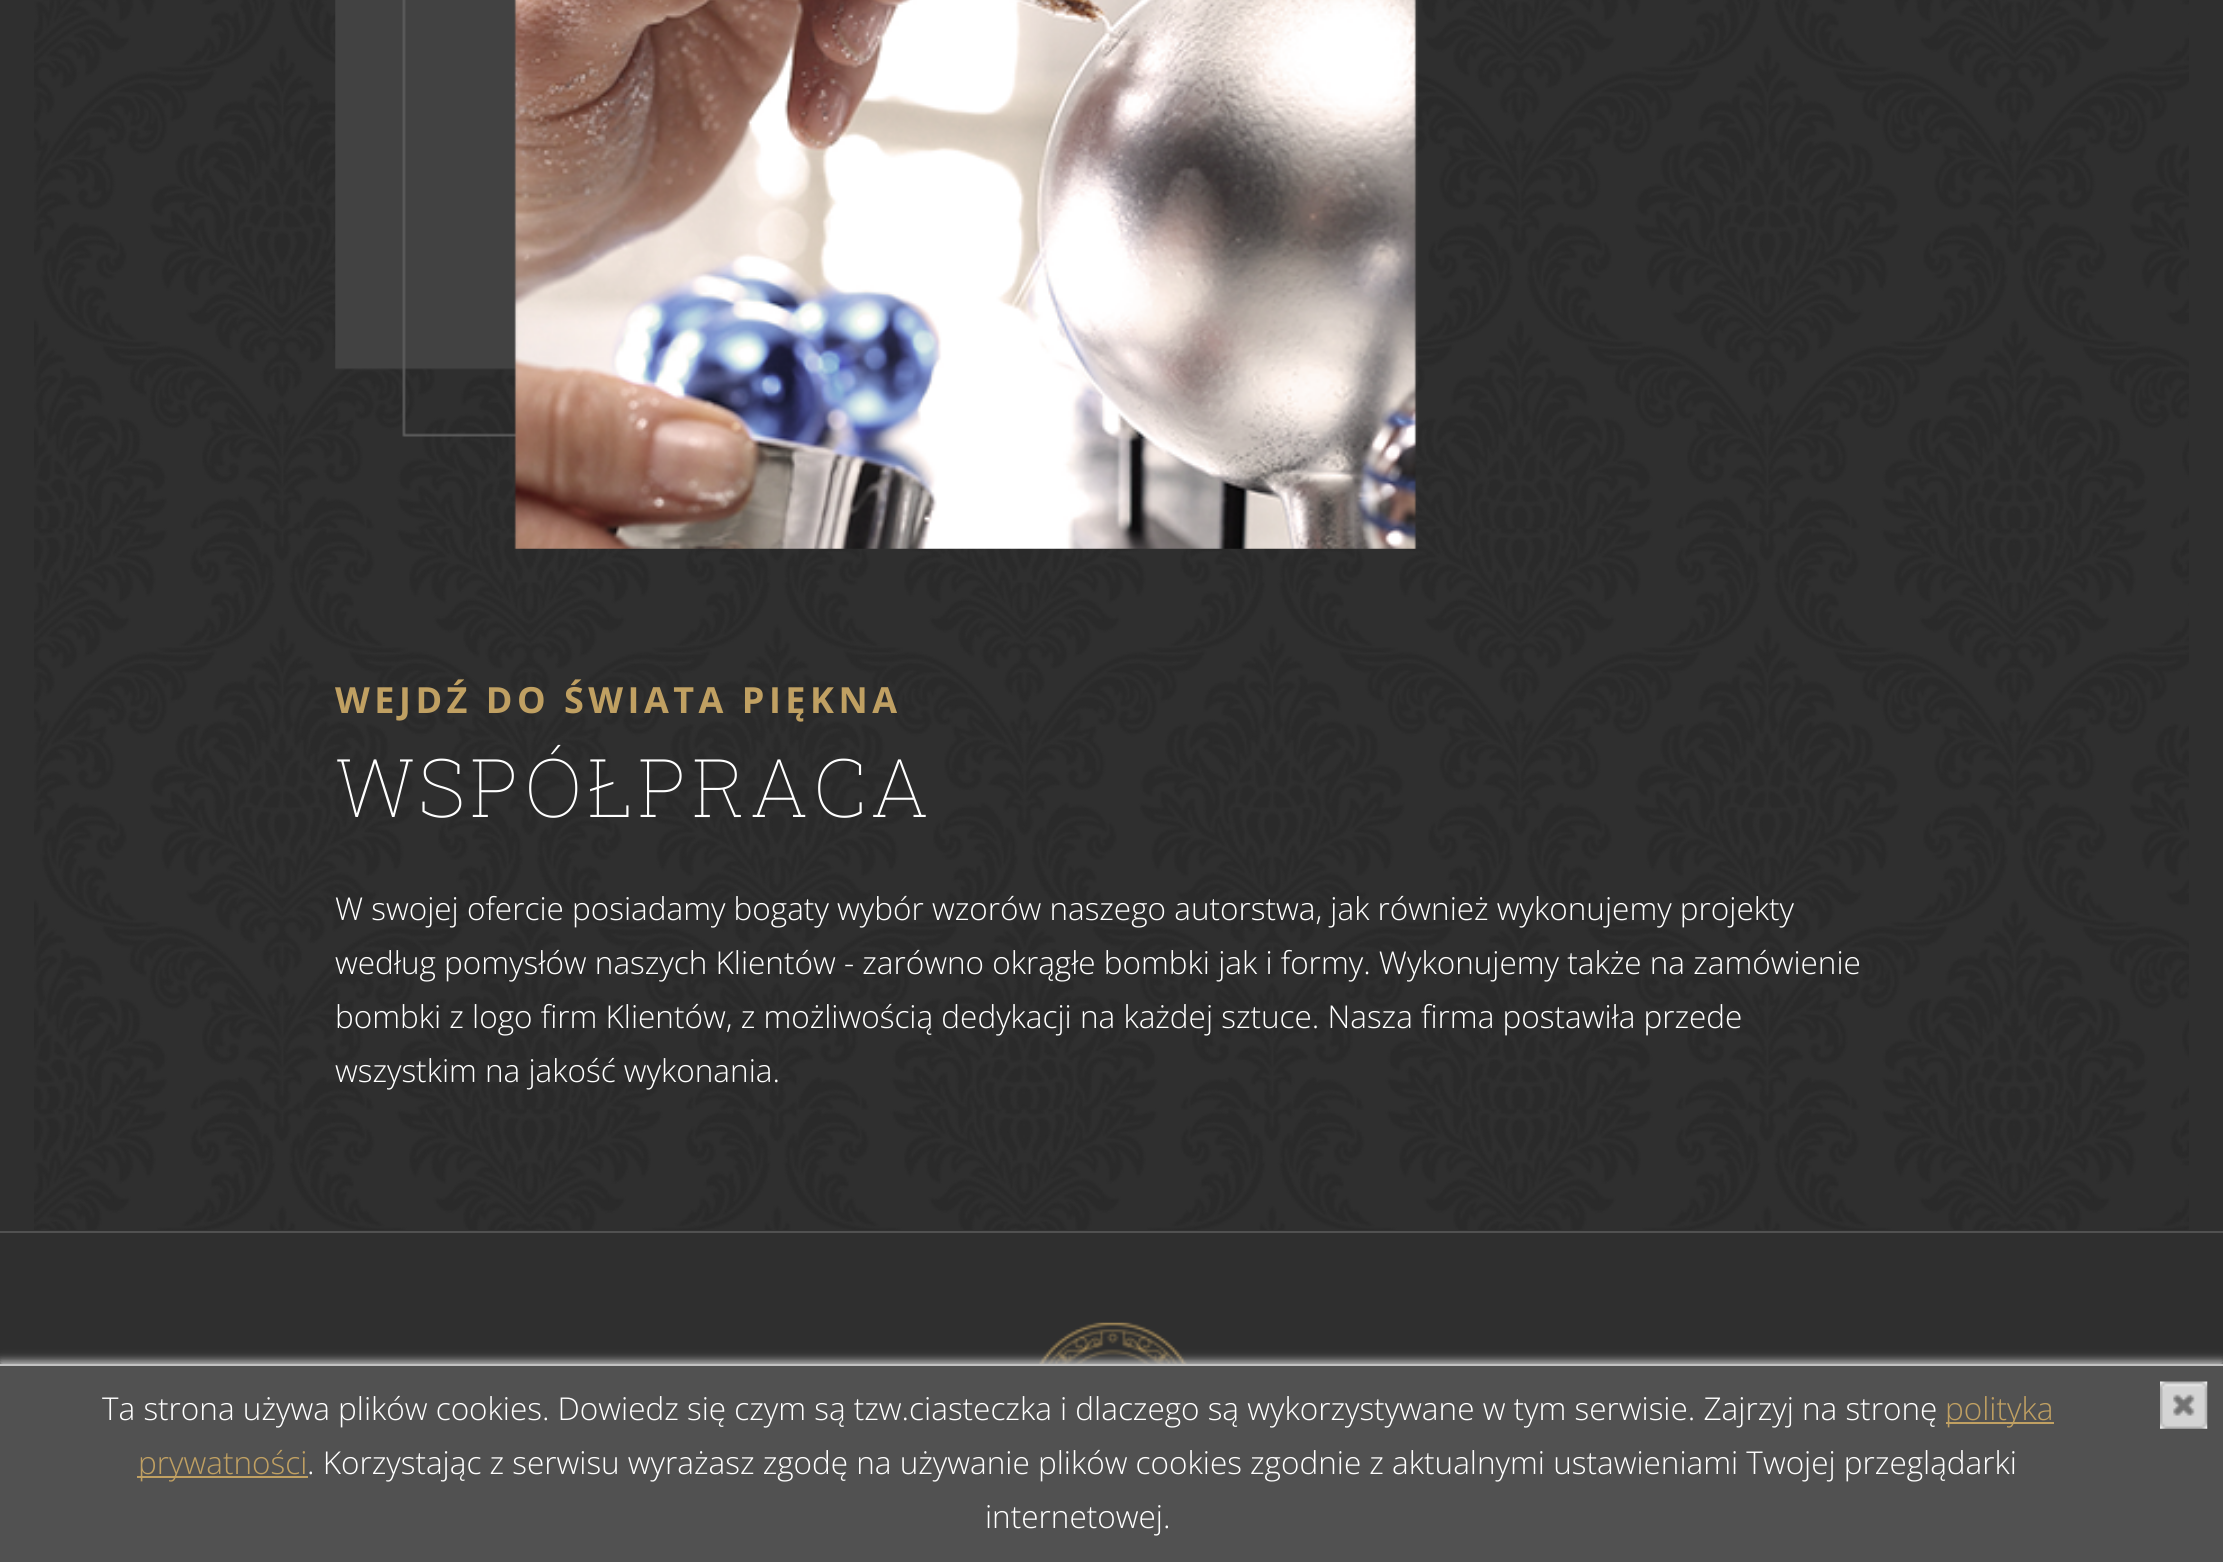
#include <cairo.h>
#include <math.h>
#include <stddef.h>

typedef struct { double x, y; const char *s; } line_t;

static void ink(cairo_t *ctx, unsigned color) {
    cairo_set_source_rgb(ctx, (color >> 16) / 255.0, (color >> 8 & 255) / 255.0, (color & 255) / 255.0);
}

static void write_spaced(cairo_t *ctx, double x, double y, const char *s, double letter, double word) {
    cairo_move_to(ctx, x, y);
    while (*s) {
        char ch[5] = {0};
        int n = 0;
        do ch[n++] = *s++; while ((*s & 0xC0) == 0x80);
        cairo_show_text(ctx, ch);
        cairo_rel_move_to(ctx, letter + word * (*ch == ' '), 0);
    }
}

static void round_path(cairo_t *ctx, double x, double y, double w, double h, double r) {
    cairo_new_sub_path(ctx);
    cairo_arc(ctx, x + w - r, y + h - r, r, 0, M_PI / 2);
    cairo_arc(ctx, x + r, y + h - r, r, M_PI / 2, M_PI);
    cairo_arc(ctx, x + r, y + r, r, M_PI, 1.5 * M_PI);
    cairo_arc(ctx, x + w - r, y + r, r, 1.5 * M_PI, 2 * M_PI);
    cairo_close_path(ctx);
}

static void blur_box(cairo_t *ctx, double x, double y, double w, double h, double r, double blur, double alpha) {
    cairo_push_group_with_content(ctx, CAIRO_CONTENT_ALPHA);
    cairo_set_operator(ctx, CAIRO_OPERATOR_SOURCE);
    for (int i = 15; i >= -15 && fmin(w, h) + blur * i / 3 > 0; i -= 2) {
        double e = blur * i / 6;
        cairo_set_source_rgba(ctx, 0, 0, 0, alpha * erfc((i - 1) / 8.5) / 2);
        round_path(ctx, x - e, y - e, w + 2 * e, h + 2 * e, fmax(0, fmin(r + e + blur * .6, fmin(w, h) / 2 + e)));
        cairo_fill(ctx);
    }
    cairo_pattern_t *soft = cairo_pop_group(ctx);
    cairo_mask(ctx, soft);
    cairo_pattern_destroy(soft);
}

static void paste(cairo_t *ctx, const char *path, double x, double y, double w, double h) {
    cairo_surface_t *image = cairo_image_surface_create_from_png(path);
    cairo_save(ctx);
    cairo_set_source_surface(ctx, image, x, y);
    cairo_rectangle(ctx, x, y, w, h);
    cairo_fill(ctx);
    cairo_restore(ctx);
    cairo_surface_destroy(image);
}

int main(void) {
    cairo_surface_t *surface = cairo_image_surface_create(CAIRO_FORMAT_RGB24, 2223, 1562);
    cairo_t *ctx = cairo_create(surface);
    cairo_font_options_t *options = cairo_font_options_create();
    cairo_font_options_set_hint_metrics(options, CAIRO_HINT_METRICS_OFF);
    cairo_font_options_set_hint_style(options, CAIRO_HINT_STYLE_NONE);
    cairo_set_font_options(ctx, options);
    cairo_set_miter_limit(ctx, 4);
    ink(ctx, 0x2F2F2F);
    cairo_paint(ctx);
    paste(ctx, "media/1.png", 34, 0, 2155, 1230);
    paste(ctx, "media/2.png", 335, 0, 1083, 549);
    cairo_select_font_face(ctx, "Open Sans", CAIRO_FONT_SLANT_NORMAL, CAIRO_FONT_WEIGHT_BOLD);
    cairo_set_font_size(ctx, 36);
    ink(ctx, 0xC0A062);
    write_spaced(ctx, 335, 713, "WEJDŹ DO ŚWIATA PIĘKNA", 4.5, 0);
    cairo_select_font_face(ctx, "Roboto Slab Thin", CAIRO_FONT_SLANT_NORMAL, CAIRO_FONT_WEIGHT_NORMAL);
    cairo_set_font_size(ctx, 81);
    ink(ctx, 0xFFFFFF);
    write_spaced(ctx, 335, 817, "WSPÓŁPRACA", 4.5, 0);
    cairo_select_font_face(ctx, "Open Sans Light", CAIRO_FONT_SLANT_NORMAL, CAIRO_FONT_WEIGHT_NORMAL);
    cairo_set_font_size(ctx, 31.5);
    {
        static const line_t items[] = {
            {335, 920, "W swojej ofercie posiadamy bogaty wybór wzorów naszego autorstwa, jak również wykonujemy projekty"},
            {335, 974, "według pomysłów naszych Klientów - zarówno okrągłe bombki jak i formy. Wykonujemy także na zamówienie"},
            {335, 1028, "bombki z logo firm Klientów, z możliwością dedykacji na każdej sztuce. Nasza firma postawiła przede"},
            {335, 1082, "wszystkim na jakość wykonania."},
        };
        for (size_t i = 0; i < sizeof items / sizeof *items; i++) {
            cairo_move_to(ctx, items[i].x, items[i].y);
            cairo_show_text(ctx, items[i].s);
        }
    }
    ink(ctx, 0x515151);
    cairo_rectangle(ctx, 0, 1231, 2223, 2);
    cairo_fill(ctx);
    paste(ctx, "media/3.png", 1039, 1322, 148, 42);
    ink(ctx, 0xC1C1C1);
    blur_box(ctx, 0, 1361, 2223, 201, 0, 4.5, 1);
    ink(ctx, 0x515151);
    cairo_rectangle(ctx, 0, 1366, 2223, 196);
    cairo_fill(ctx);
    ink(ctx, 0xC1C1C1);
    cairo_rectangle(ctx, 0, 1364, 2223, 2);
    cairo_fill(ctx);
    ink(ctx, 0xFFFFFF);
    cairo_move_to(ctx, 102, 1420);
    cairo_show_text(ctx, "Ta strona używa plików cookies. Dowiedz się czym są tzw.ciasteczka i dlaczego są wykorzystywane w tym serwisie. Zajrzyj na stronę");
    ink(ctx, 0xC0A062);
    cairo_rectangle(ctx, 1946, 1422, 108, 2);
    cairo_fill(ctx);
    cairo_move_to(ctx, 1945, 1420);
    cairo_show_text(ctx, "polityka");
    paste(ctx, "media/4.png", 2160, 1381, 48, 48);
    cairo_rectangle(ctx, 137, 1476, 171, 2);
    cairo_fill(ctx);
    cairo_move_to(ctx, 138, 1474);
    cairo_show_text(ctx, "prywatności");
    ink(ctx, 0xFFFFFF);
    cairo_move_to(ctx, 307, 1474);
    cairo_show_text(ctx, ". Korzystając z serwisu wyrażasz zgodę na używanie plików cookies zgodnie z aktualnymi ustawieniami Twojej przeglądarki");
    cairo_move_to(ctx, 985, 1528);
    cairo_show_text(ctx, "internetowej.");
    cairo_surface_write_to_png(surface, "image.png");
    cairo_font_options_destroy(options);
    cairo_destroy(ctx);
    cairo_surface_destroy(surface);
    return 0;
}
